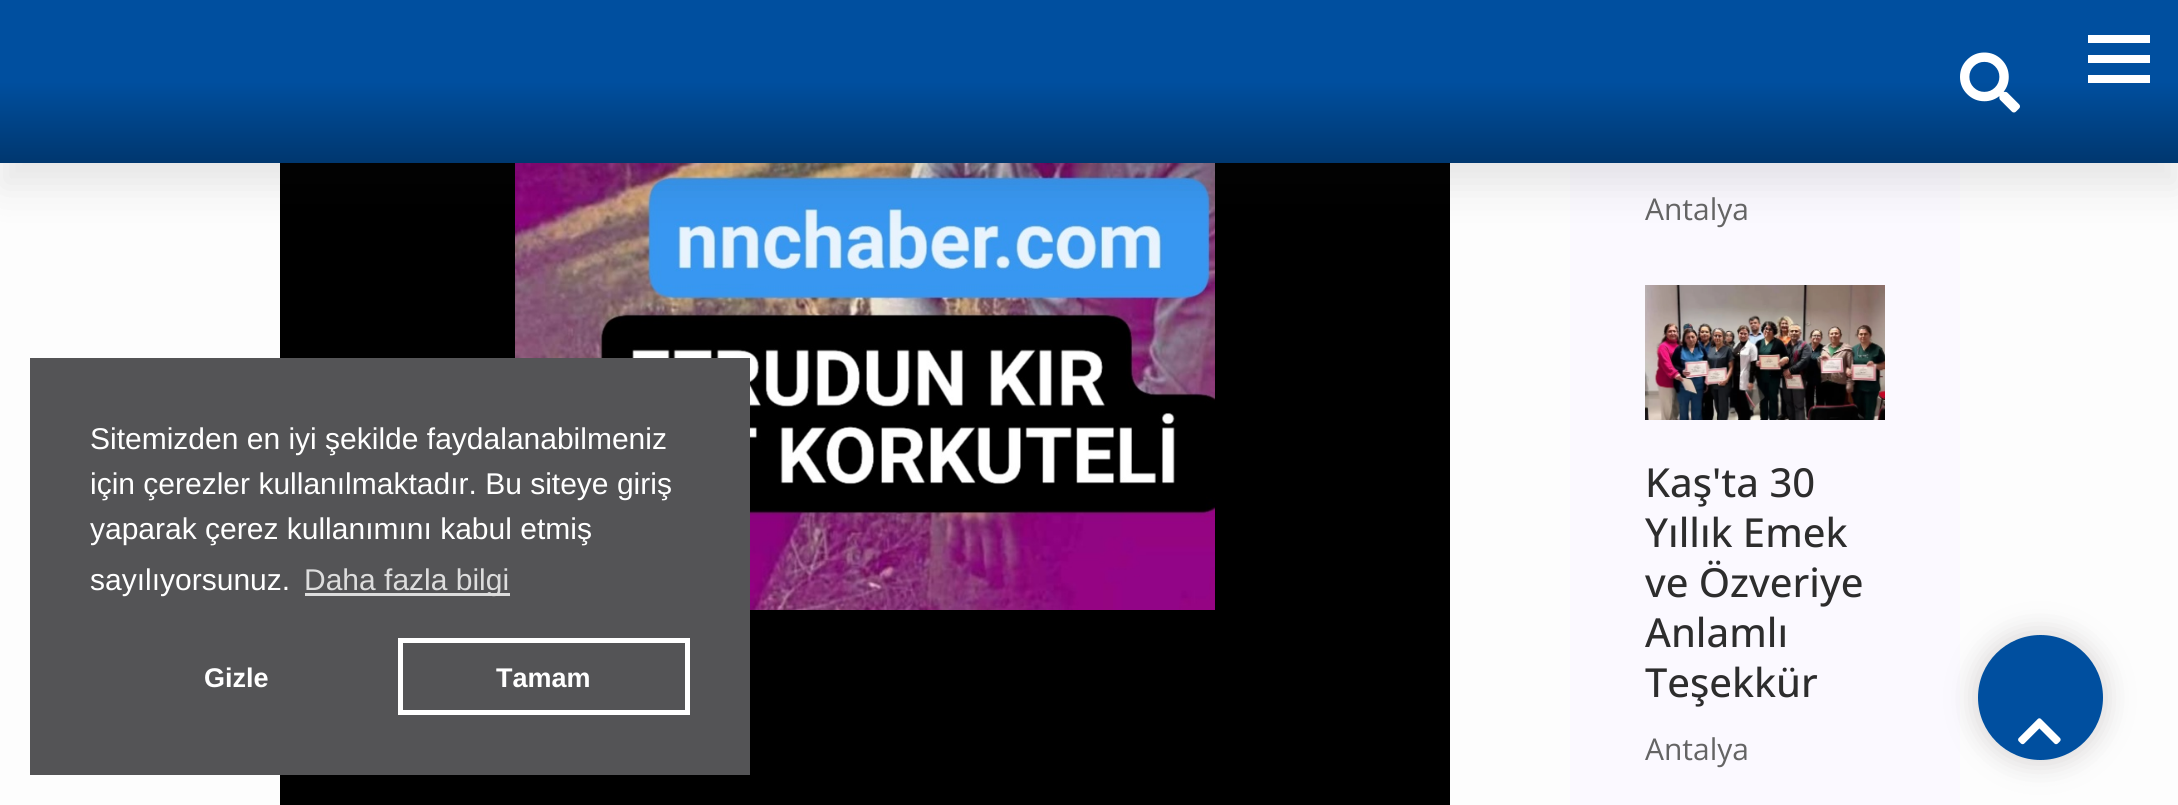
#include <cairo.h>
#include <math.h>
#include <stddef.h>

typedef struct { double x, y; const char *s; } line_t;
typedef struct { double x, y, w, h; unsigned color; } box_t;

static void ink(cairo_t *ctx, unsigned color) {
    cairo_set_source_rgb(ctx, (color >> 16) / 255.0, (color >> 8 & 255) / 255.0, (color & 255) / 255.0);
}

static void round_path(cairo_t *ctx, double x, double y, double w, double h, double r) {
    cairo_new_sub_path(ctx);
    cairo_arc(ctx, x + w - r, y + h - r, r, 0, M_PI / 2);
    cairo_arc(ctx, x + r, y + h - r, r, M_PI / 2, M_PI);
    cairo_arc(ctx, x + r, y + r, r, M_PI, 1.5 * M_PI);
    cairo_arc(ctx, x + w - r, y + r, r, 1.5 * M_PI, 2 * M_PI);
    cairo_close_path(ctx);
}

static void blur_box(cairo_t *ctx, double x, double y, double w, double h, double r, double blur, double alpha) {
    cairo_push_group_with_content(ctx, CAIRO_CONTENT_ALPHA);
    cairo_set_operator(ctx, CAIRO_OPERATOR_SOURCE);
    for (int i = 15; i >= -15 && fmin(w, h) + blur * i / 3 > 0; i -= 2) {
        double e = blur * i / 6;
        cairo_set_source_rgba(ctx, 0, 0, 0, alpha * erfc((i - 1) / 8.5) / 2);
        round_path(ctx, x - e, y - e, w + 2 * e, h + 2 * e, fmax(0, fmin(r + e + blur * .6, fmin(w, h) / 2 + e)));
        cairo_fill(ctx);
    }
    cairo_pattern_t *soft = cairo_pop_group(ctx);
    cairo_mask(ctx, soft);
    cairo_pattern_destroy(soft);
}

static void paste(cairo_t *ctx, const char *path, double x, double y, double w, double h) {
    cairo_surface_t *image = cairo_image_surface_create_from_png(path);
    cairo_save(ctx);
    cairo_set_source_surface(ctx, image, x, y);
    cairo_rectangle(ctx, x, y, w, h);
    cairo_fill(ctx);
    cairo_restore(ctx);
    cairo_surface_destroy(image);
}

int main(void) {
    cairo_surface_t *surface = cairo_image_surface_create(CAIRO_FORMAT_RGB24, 2178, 805);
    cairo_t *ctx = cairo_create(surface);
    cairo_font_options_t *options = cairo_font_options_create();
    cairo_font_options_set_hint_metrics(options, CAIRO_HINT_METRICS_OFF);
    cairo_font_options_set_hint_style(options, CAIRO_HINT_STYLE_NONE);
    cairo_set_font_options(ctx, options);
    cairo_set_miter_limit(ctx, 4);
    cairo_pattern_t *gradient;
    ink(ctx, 0xFDFDFD);
    cairo_paint(ctx);
    ink(ctx, 0x000000);
    cairo_rectangle(ctx, 280, 163, 1170, 642);
    cairo_fill(ctx);
    paste(ctx, "media/2.png", 515, 163, 700, 447);
    ink(ctx, 0xFBF9FF);
    cairo_rectangle(ctx, 1570, 163, 390, 642);
    cairo_fill(ctx);
    ink(ctx, 0x191919);
    blur_box(ctx, 0, 25, 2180, 163, 0, 19, 0.1);
    gradient = cairo_pattern_create_linear(1090, 163, 1090, 0);
    cairo_pattern_add_color_stop_rgba(gradient, 0, 0.008, 0, 0.141, 1);
    cairo_pattern_add_color_stop_rgba(gradient, 0, 0, 0.216, 0.435, 1);
    cairo_pattern_add_color_stop_rgba(gradient, 0.5, 0, 0.31, 0.624, 1);
    cairo_set_source(ctx, gradient);
    cairo_pattern_destroy(gradient);
    cairo_rectangle(ctx, 0, 0, 2178, 163);
    cairo_fill(ctx);
    paste(ctx, "media/1.png", 1960, 52, 60, 61);
    {
        static const box_t items[] = {
            {2088, 35, 62, 8, 0xFFFFFF},
            {2088, 55, 62, 8, 0xFFFFFF},
            {2088, 75, 62, 8, 0xFFFFFF},
            {30, 358, 720, 417, 0x545456},
        };
        for (size_t i = 0; i < sizeof items / sizeof *items; i++) {
            ink(ctx, items[i].color);
            cairo_rectangle(ctx, items[i].x, items[i].y, items[i].w, items[i].h);
            cairo_fill(ctx);
        }
    }
    cairo_select_font_face(ctx, "Liberation Sans", CAIRO_FONT_SLANT_NORMAL, CAIRO_FONT_WEIGHT_NORMAL);
    cairo_set_font_size(ctx, 30);
    ink(ctx, 0xFFFFFF);
    {
        static const line_t items[] = {
            {90, 449, "Sitemizden en iyi şekilde faydalanabilmeniz"},
            {90, 494, "için çerezler kullanılmaktadır. Bu siteye giriş"},
            {90, 539, "yaparak çerez kullanımını kabul etmiş"},
            {90, 590, "sayılıyorsunuz."},
        };
        for (size_t i = 0; i < sizeof items / sizeof *items; i++) {
            cairo_move_to(ctx, items[i].x, items[i].y);
            cairo_show_text(ctx, items[i].s);
        }
    }
    ink(ctx, 0xDDDDDD);
    cairo_rectangle(ctx, 305, 593, 205, 3);
    cairo_fill(ctx);
    cairo_move_to(ctx, 304, 590);
    cairo_show_text(ctx, "Daha fazla bilgi");
    cairo_select_font_face(ctx, "Liberation Sans", CAIRO_FONT_SLANT_NORMAL, CAIRO_FONT_WEIGHT_BOLD);
    cairo_set_font_size(ctx, 27);
    ink(ctx, 0xFFFFFF);
    cairo_move_to(ctx, 204, 687);
    cairo_show_text(ctx, "Gizle");
    cairo_rectangle(ctx, 400.5, 640.5, 287, 72);
    cairo_set_line_width(ctx, 5);
    cairo_stroke(ctx);
    cairo_move_to(ctx, 496, 687);
    cairo_show_text(ctx, "Tamam");
    cairo_select_font_face(ctx, "Open Sans", CAIRO_FONT_SLANT_NORMAL, CAIRO_FONT_WEIGHT_NORMAL);
    cairo_set_font_size(ctx, 30);
    ink(ctx, 0x646464);
    cairo_move_to(ctx, 1645, 220);
    cairo_show_text(ctx, "Antalya");
    paste(ctx, "media/3.png", 1645, 285, 240, 135);
    cairo_select_font_face(ctx, "Open Sans Medium", CAIRO_FONT_SLANT_NORMAL, CAIRO_FONT_WEIGHT_NORMAL);
    cairo_set_font_size(ctx, 40);
    ink(ctx, 0x2D2D2D);
    {
        static const line_t items[] = {
            {1645, 497, "Kaş'ta 30"},
            {1645, 547, "Yıllık Emek"},
            {1645, 597, "ve Özveriye"},
            {1645, 647, "Anlamlı"},
            {1645, 697, "Teşekkür"},
        };
        for (size_t i = 0; i < sizeof items / sizeof *items; i++) {
            cairo_move_to(ctx, items[i].x, items[i].y);
            cairo_show_text(ctx, items[i].s);
        }
    }
    cairo_select_font_face(ctx, "Open Sans", CAIRO_FONT_SLANT_NORMAL, CAIRO_FONT_WEIGHT_NORMAL);
    cairo_set_font_size(ctx, 30);
    ink(ctx, 0x646464);
    cairo_move_to(ctx, 1645, 760);
    cairo_show_text(ctx, "Antalya");
    ink(ctx, 0x6C6262);
    blur_box(ctx, 1970, 628, 140, 140, 70, 12.5, 0.2);
    ink(ctx, 0x004F9F);
    cairo_arc(ctx, 2040.5, 697.5, 62.5, 0, 2 * M_PI);
    cairo_fill(ctx);
    paste(ctx, "media/4.png", 2018, 718, 43, 27);
    cairo_surface_write_to_png(surface, "image.png");
    cairo_font_options_destroy(options);
    cairo_destroy(ctx);
    cairo_surface_destroy(surface);
    return 0;
}
